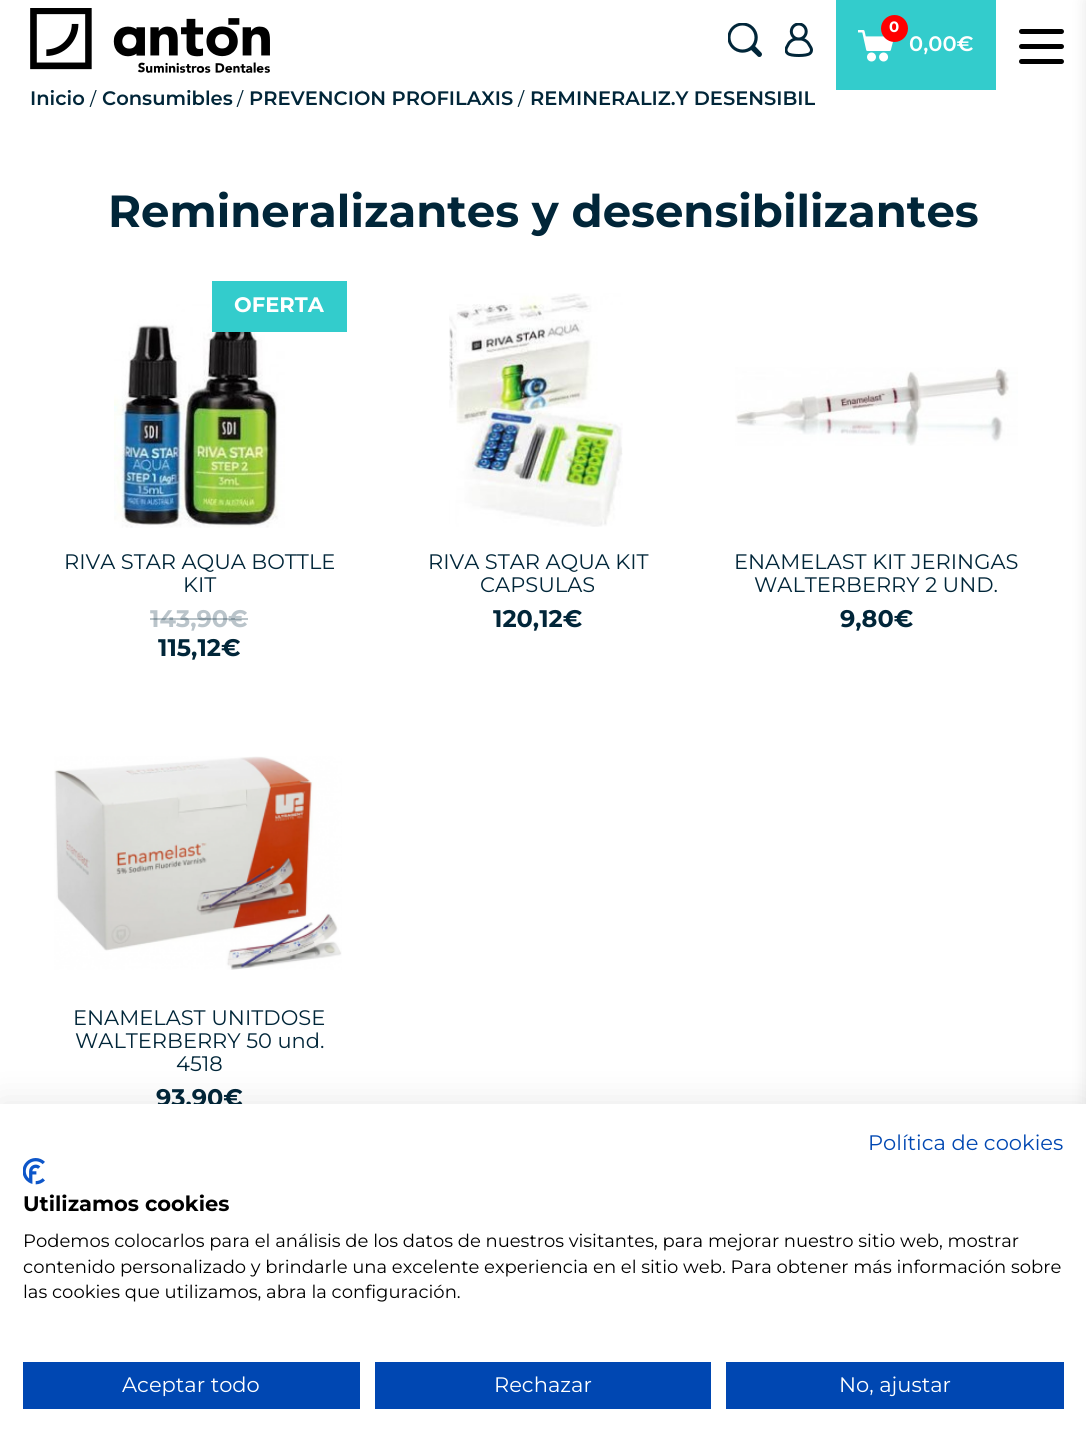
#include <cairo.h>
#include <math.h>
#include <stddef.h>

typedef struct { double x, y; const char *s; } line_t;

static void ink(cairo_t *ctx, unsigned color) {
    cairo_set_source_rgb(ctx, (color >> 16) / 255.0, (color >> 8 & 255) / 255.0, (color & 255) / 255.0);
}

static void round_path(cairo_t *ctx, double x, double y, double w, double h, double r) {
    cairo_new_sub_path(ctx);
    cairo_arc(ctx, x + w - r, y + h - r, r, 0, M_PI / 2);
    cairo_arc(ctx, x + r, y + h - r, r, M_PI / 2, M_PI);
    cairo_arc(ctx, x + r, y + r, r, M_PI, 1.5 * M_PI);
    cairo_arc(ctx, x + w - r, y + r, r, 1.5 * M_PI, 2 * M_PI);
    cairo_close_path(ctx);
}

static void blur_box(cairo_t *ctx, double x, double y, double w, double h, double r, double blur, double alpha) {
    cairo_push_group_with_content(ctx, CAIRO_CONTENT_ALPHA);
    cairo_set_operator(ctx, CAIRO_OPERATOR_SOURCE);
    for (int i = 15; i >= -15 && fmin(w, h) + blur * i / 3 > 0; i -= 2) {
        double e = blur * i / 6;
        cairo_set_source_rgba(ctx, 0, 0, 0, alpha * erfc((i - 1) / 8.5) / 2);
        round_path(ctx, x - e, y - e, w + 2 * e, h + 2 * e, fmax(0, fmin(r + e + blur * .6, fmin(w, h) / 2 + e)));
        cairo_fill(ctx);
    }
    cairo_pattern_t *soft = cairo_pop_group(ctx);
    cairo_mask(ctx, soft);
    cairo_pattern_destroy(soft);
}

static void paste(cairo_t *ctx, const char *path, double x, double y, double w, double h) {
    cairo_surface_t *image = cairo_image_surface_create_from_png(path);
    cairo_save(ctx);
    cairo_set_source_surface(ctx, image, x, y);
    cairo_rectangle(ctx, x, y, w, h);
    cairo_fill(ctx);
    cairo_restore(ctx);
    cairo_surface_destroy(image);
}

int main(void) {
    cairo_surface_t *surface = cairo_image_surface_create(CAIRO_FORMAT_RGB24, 1086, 1448);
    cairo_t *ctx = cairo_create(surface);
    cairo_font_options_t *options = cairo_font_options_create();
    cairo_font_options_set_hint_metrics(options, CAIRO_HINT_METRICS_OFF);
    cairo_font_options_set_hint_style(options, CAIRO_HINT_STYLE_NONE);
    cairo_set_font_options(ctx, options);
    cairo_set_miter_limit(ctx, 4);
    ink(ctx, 0xFFFFFF);
    cairo_paint(ctx);
    cairo_select_font_face(ctx, "Montserrat Thin", CAIRO_FONT_SLANT_NORMAL, CAIRO_FONT_WEIGHT_NORMAL);
    cairo_set_font_size(ctx, 19.5);
    ink(ctx, 0x012639);
    cairo_move_to(ctx, 30, 105);
    cairo_show_text(ctx, "Inicio");
    cairo_select_font_face(ctx, "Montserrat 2 Thin", CAIRO_FONT_SLANT_NORMAL, CAIRO_FONT_WEIGHT_NORMAL);
    cairo_move_to(ctx, 90, 105);
    cairo_show_text(ctx, "/");
    cairo_select_font_face(ctx, "Montserrat Thin", CAIRO_FONT_SLANT_NORMAL, CAIRO_FONT_WEIGHT_NORMAL);
    cairo_move_to(ctx, 102, 105);
    cairo_show_text(ctx, "Consumibles");
    cairo_select_font_face(ctx, "Montserrat 2 Thin", CAIRO_FONT_SLANT_NORMAL, CAIRO_FONT_WEIGHT_NORMAL);
    cairo_move_to(ctx, 237, 105);
    cairo_show_text(ctx, "/");
    cairo_select_font_face(ctx, "Montserrat Thin", CAIRO_FONT_SLANT_NORMAL, CAIRO_FONT_WEIGHT_NORMAL);
    cairo_move_to(ctx, 249, 105);
    cairo_show_text(ctx, "PREVENCIÓN PROFILAXIS");
    cairo_select_font_face(ctx, "Montserrat 2 Thin", CAIRO_FONT_SLANT_NORMAL, CAIRO_FONT_WEIGHT_NORMAL);
    cairo_move_to(ctx, 518, 105);
    cairo_show_text(ctx, "/");
    ink(ctx, 0xFFFFFF);
    cairo_rectangle(ctx, 52, 87, 474, 3);
    cairo_fill(ctx);
    paste(ctx, "media/1.png", 30, 8, 240, 65);
    paste(ctx, "media/2.png", 728, 23, 34, 34);
    paste(ctx, "media/3.png", 785, 23, 28, 34);
    ink(ctx, 0x33CCCC);
    cairo_rectangle(ctx, 836, 0, 160, 90);
    cairo_fill(ctx);
    paste(ctx, "media/4.png", 858, 30, 36, 32);
    ink(ctx, 0xFF0000);
    cairo_arc(ctx, 894.5, 28.5, 13.5, 0, 2 * M_PI);
    cairo_fill(ctx);
    cairo_select_font_face(ctx, "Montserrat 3 Thin", CAIRO_FONT_SLANT_NORMAL, CAIRO_FONT_WEIGHT_NORMAL);
    cairo_set_font_size(ctx, 15);
    ink(ctx, 0xFFFFFF);
    cairo_move_to(ctx, 889, 32);
    cairo_show_text(ctx, "0");
    cairo_select_font_face(ctx, "Montserrat Thin", CAIRO_FONT_SLANT_NORMAL, CAIRO_FONT_WEIGHT_NORMAL);
    cairo_set_font_size(ctx, 21);
    cairo_move_to(ctx, 909, 51);
    cairo_show_text(ctx, "0,00€");
    ink(ctx, 0x000000);
    round_path(ctx, 1019, 29, 45, 5, 2.5);
    cairo_fill(ctx);
    round_path(ctx, 1019, 44, 45, 5, 2.5);
    cairo_fill(ctx);
    round_path(ctx, 1019, 59, 45, 5, 2.5);
    cairo_fill(ctx);
    ink(ctx, 0x000000);
    blur_box(ctx, 1086, 0, 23, 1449, 0, 7.5, 0.1);
    cairo_set_font_size(ctx, 19.5);
    ink(ctx, 0x012639);
    cairo_move_to(ctx, 530, 105);
    cairo_show_text(ctx, "REMINERALIZ.Y DESENSIBIL");
    cairo_select_font_face(ctx, "Montserrat 3 Thin", CAIRO_FONT_SLANT_NORMAL, CAIRO_FONT_WEIGHT_NORMAL);
    cairo_set_font_size(ctx, 45);
    cairo_move_to(ctx, 108, 227);
    cairo_show_text(ctx, "Remineralizantes y desensibilizantes");
    paste(ctx, "media/5.png", 114, 302, 171, 226);
    ink(ctx, 0x33CCCC);
    cairo_rectangle(ctx, 212, 281, 135, 51);
    cairo_fill(ctx);
    cairo_set_font_size(ctx, 21);
    ink(ctx, 0xFFFFFF);
    cairo_move_to(ctx, 234, 312);
    cairo_show_text(ctx, "OFERTA");
    cairo_select_font_face(ctx, "Montserrat 2 Thin", CAIRO_FONT_SLANT_NORMAL, CAIRO_FONT_WEIGHT_NORMAL);
    ink(ctx, 0x012639);
    cairo_move_to(ctx, 64, 569);
    cairo_show_text(ctx, "RIVA STAR AQUA BOTTLE");
    cairo_move_to(ctx, 183, 592);
    cairo_show_text(ctx, "KIT");
    cairo_select_font_face(ctx, "Montserrat 3 Thin", CAIRO_FONT_SLANT_NORMAL, CAIRO_FONT_WEIGHT_NORMAL);
    cairo_set_font_size(ctx, 24);
    ink(ctx, 0xBAC4CA);
    cairo_move_to(ctx, 150, 627);
    cairo_show_text(ctx, "143,90€");
    cairo_set_source_rgba(ctx, 0, 0.149, 0.224, 0.27);
    cairo_rectangle(ctx, 150, 618, 98, 2);
    cairo_fill(ctx);
    ink(ctx, 0x012639);
    cairo_move_to(ctx, 158, 656);
    cairo_show_text(ctx, "115,12€");
    paste(ctx, "media/6.png", 449, 293, 174, 234);
    cairo_select_font_face(ctx, "Montserrat 2 Thin", CAIRO_FONT_SLANT_NORMAL, CAIRO_FONT_WEIGHT_NORMAL);
    cairo_set_font_size(ctx, 21);
    cairo_move_to(ctx, 428, 569);
    cairo_show_text(ctx, "RIVA STAR AQUA KIT");
    cairo_move_to(ctx, 480, 592);
    cairo_show_text(ctx, "CAPSULAS");
    cairo_select_font_face(ctx, "Montserrat 3 Thin", CAIRO_FONT_SLANT_NORMAL, CAIRO_FONT_WEIGHT_NORMAL);
    cairo_set_font_size(ctx, 24);
    cairo_move_to(ctx, 493, 627);
    cairo_show_text(ctx, "120,12€");
    paste(ctx, "media/7.png", 735, 367, 283, 79);
    cairo_select_font_face(ctx, "Montserrat 2 Thin", CAIRO_FONT_SLANT_NORMAL, CAIRO_FONT_WEIGHT_NORMAL);
    cairo_set_font_size(ctx, 21);
    cairo_move_to(ctx, 734, 569);
    cairo_show_text(ctx, "ENAMELAST KIT JERINGAS");
    cairo_move_to(ctx, 754, 592);
    cairo_show_text(ctx, "WALTERBERRY 2 UND.");
    cairo_select_font_face(ctx, "Montserrat 3 Thin", CAIRO_FONT_SLANT_NORMAL, CAIRO_FONT_WEIGHT_NORMAL);
    cairo_set_font_size(ctx, 24);
    cairo_move_to(ctx, 840, 627);
    cairo_show_text(ctx, "9,80€");
    paste(ctx, "media/8.png", 54, 756, 288, 214);
    cairo_select_font_face(ctx, "Montserrat 2 Thin", CAIRO_FONT_SLANT_NORMAL, CAIRO_FONT_WEIGHT_NORMAL);
    cairo_set_font_size(ctx, 21);
    {
        static const line_t items[] = {
            {73, 1025, "ENAMELAST UNITDOSE"},
            {75, 1048, "WALTERBERRY 50 und."},
            {176, 1071, "4518"},
        };
        for (size_t i = 0; i < sizeof items / sizeof *items; i++) {
            cairo_move_to(ctx, items[i].x, items[i].y);
            cairo_show_text(ctx, items[i].s);
        }
    }
    cairo_select_font_face(ctx, "Montserrat 3 Thin", CAIRO_FONT_SLANT_NORMAL, CAIRO_FONT_WEIGHT_NORMAL);
    cairo_set_font_size(ctx, 24);
    cairo_move_to(ctx, 156, 1106);
    cairo_show_text(ctx, "93,90€");
    ink(ctx, 0x000000);
    blur_box(ctx, 0, 1104, 1086, 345, 0, 18, 0.1);
    ink(ctx, 0xFFFFFF);
    cairo_rectangle(ctx, 0, 1104, 1086, 344);
    cairo_fill(ctx);
    cairo_select_font_face(ctx, "Montserrat 2 Thin", CAIRO_FONT_SLANT_NORMAL, CAIRO_FONT_WEIGHT_NORMAL);
    cairo_set_font_size(ctx, 21);
    ink(ctx, 0x0047B2);
    cairo_move_to(ctx, 868, 1150);
    cairo_show_text(ctx, "Política de cookies");
    paste(ctx, "media/9.png", 23, 1158, 22, 27);
    cairo_select_font_face(ctx, "Montserrat 3 Thin", CAIRO_FONT_SLANT_NORMAL, CAIRO_FONT_WEIGHT_NORMAL);
    ink(ctx, 0x000000);
    cairo_move_to(ctx, 23, 1211);
    cairo_show_text(ctx, "Utilizamos cookies");
    cairo_select_font_face(ctx, "Montserrat 2 Thin", CAIRO_FONT_SLANT_NORMAL, CAIRO_FONT_WEIGHT_NORMAL);
    cairo_set_font_size(ctx, 18);
    {
        static const line_t items[] = {
            {23, 1247, "Podemos colocarlos para el análisis de los datos de nuestros visitantes, para mejorar nuestro sitio web, mostrar"},
            {23, 1273, "contenido personalizado y brindarle una excelente experiencia en el sitio web. Para obtener más información sobre"},
            {23, 1298, "las cookies que utilizamos, abra la configuración."},
        };
        for (size_t i = 0; i < sizeof items / sizeof *items; i++) {
            cairo_move_to(ctx, items[i].x, items[i].y);
            cairo_show_text(ctx, items[i].s);
        }
    }
    ink(ctx, 0x0047B2);
    cairo_rectangle(ctx, 23, 1362, 337, 47);
    cairo_fill(ctx);
    cairo_set_font_size(ctx, 21);
    ink(ctx, 0xFFFFFF);
    cairo_move_to(ctx, 122, 1392);
    cairo_show_text(ctx, "Aceptar todo");
    ink(ctx, 0x0047B2);
    cairo_rectangle(ctx, 375, 1362, 336, 47);
    cairo_fill(ctx);
    ink(ctx, 0xFFFFFF);
    cairo_move_to(ctx, 494, 1392);
    cairo_show_text(ctx, "Rechazar");
    ink(ctx, 0x0047B2);
    cairo_rectangle(ctx, 726, 1362, 338, 47);
    cairo_fill(ctx);
    ink(ctx, 0xFFFFFF);
    cairo_move_to(ctx, 839, 1392);
    cairo_show_text(ctx, "No, ajustar");
    cairo_surface_write_to_png(surface, "image.png");
    cairo_font_options_destroy(options);
    cairo_destroy(ctx);
    cairo_surface_destroy(surface);
    return 0;
}
